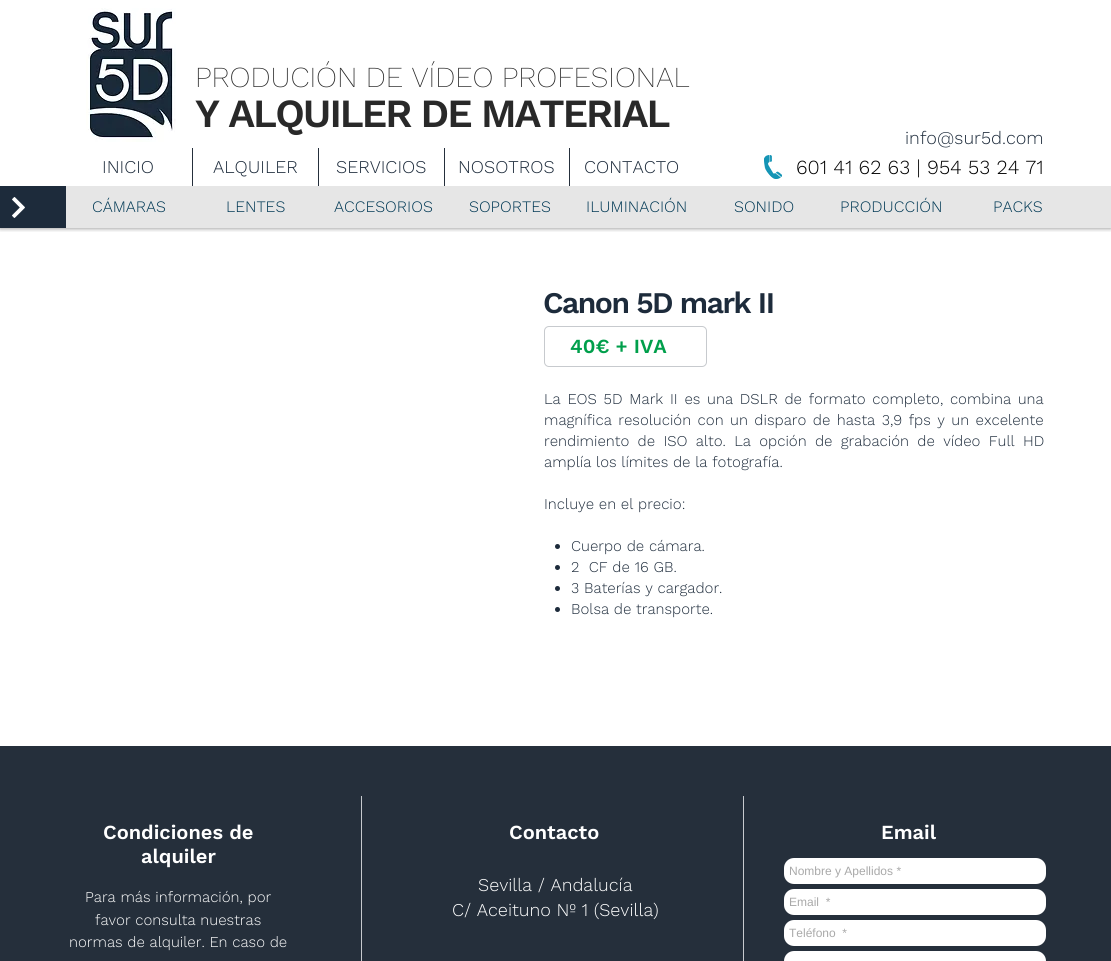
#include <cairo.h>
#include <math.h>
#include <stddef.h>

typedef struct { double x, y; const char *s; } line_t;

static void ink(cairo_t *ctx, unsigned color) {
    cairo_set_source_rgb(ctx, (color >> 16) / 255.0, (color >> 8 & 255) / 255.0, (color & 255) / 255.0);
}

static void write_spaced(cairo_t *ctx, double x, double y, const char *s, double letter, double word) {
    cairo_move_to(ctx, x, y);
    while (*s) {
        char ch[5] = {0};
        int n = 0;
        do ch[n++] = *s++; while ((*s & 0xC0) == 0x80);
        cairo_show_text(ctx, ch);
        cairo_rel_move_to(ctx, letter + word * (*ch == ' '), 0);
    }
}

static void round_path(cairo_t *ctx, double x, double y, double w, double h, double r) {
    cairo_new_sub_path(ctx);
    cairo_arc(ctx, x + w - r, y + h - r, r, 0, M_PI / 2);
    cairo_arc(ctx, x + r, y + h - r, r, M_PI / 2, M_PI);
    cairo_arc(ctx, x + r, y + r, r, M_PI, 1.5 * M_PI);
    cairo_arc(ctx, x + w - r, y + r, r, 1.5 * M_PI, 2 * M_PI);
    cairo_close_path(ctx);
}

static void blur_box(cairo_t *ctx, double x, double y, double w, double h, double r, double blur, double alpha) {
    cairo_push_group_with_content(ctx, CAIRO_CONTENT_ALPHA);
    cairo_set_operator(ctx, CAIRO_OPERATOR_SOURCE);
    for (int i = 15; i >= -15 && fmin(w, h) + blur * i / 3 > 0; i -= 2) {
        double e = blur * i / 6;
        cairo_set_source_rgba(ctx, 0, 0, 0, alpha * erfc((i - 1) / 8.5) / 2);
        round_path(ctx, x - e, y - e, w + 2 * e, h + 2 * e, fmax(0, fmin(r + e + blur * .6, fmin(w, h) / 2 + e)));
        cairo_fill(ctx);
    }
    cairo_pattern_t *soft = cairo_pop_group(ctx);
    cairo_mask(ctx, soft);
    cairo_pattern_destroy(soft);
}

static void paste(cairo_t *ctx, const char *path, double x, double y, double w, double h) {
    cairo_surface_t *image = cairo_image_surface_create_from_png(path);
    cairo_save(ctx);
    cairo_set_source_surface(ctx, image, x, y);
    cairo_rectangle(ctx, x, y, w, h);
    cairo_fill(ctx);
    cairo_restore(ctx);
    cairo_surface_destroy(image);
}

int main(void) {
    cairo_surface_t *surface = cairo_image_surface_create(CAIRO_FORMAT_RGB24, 1111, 961);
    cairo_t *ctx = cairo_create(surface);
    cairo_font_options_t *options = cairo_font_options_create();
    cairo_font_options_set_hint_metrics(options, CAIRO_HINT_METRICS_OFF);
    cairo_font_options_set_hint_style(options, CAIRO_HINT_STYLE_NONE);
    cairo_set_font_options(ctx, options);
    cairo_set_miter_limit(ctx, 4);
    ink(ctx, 0xFFFFFF);
    cairo_paint(ctx);
    cairo_save(ctx);
    cairo_rectangle(ctx, 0, 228, 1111, 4);
    cairo_clip(ctx);
    ink(ctx, 0x000000);
    blur_box(ctx, 0, 0, 1111, 228, 0, 2.5, 0.5);
    cairo_restore(ctx);
    paste(ctx, "media/1.png", 86, 8, 90, 134);
    cairo_select_font_face(ctx, "Work Sans ExtraLight", CAIRO_FONT_SLANT_NORMAL, CAIRO_FONT_WEIGHT_NORMAL);
    cairo_set_font_size(ctx, 29);
    ink(ctx, 0x292929);
    cairo_move_to(ctx, 195, 87);
    cairo_show_text(ctx, "PRODUCIÓN DE VÍDEO PROFESIONAL");
    cairo_select_font_face(ctx, "Work Sans SemiBold", CAIRO_FONT_SLANT_NORMAL, CAIRO_FONT_WEIGHT_NORMAL);
    cairo_set_font_size(ctx, 40);
    write_spaced(ctx, 195, 127, "Y ALQUILER DE MATERIAL", -2, 0);
    cairo_select_font_face(ctx, "Work Sans Light", CAIRO_FONT_SLANT_NORMAL, CAIRO_FONT_WEIGHT_NORMAL);
    cairo_set_font_size(ctx, 18);
    ink(ctx, 0x1D2B3B);
    cairo_move_to(ctx, 905, 144);
    cairo_show_text(ctx, "info@sur5d.com");
    cairo_move_to(ctx, 102, 173);
    cairo_show_text(ctx, "INICIO");
    ink(ctx, 0x252F3B);
    cairo_rectangle(ctx, 192, 148, 1, 38);
    cairo_fill(ctx);
    ink(ctx, 0x1D2B3B);
    cairo_move_to(ctx, 213, 173);
    cairo_show_text(ctx, "ALQUILER");
    ink(ctx, 0x252F3B);
    cairo_rectangle(ctx, 318, 148, 1, 38);
    cairo_fill(ctx);
    ink(ctx, 0x1D2B3B);
    cairo_move_to(ctx, 336, 173);
    cairo_show_text(ctx, "SERVICIOS");
    ink(ctx, 0x252F3B);
    cairo_rectangle(ctx, 444, 148, 1, 38);
    cairo_fill(ctx);
    ink(ctx, 0x1D2B3B);
    cairo_move_to(ctx, 458, 173);
    cairo_show_text(ctx, "NOSOTROS");
    ink(ctx, 0x252F3B);
    cairo_rectangle(ctx, 569, 148, 1, 38);
    cairo_fill(ctx);
    ink(ctx, 0x1D2B3B);
    cairo_move_to(ctx, 584, 173);
    cairo_show_text(ctx, "CONTACTO");
    paste(ctx, "media/2.png", 764, 155, 18, 24);
    cairo_set_font_size(ctx, 20);
    ink(ctx, 0x000000);
    cairo_move_to(ctx, 796, 174);
    cairo_show_text(ctx, "601 41 62 63 | 954 53 24 71");
    ink(ctx, 0xE6E6E6);
    cairo_rectangle(ctx, 66, 186, 1045, 42);
    cairo_fill(ctx);
    ink(ctx, 0x1D2B3B);
    cairo_rectangle(ctx, 0, 186, 66, 42);
    cairo_fill(ctx);
    paste(ctx, "media/3.png", 12, 197, 13, 21);
    cairo_set_font_size(ctx, 16);
    ink(ctx, 0x003854);
    {
        static const line_t items[] = {
            {92, 212, "CÁMARAS"},
            {226, 212, "LENTES"},
            {334, 212, "ACCESORIOS"},
            {469, 212, "SOPORTES"},
            {586, 212, "ILUMINACIÓN"},
            {734, 212, "SONIDO"},
            {840, 212, "PRODUCCIÓN"},
            {993, 212, "PACKS"},
        };
        for (size_t i = 0; i < sizeof items / sizeof *items; i++) {
            cairo_move_to(ctx, items[i].x, items[i].y);
            cairo_show_text(ctx, items[i].s);
        }
    }
    cairo_select_font_face(ctx, "Work Sans SemiBold", CAIRO_FONT_SLANT_NORMAL, CAIRO_FONT_WEIGHT_NORMAL);
    cairo_set_font_size(ctx, 30);
    ink(ctx, 0x1D2B3B);
    write_spaced(ctx, 543, 313, "Canon 5D mark II", -1.5, 0);
    round_path(ctx, 544.5, 326.5, 162, 40, 4.5);
    ink(ctx, 0xC7CACE);
    cairo_set_line_width(ctx, 1);
    cairo_stroke(ctx);
    cairo_set_font_size(ctx, 20);
    ink(ctx, 0x009F4B);
    cairo_move_to(ctx, 570, 353);
    cairo_show_text(ctx, "40€ + IVA");
    cairo_select_font_face(ctx, "Work Sans Light", CAIRO_FONT_SLANT_NORMAL, CAIRO_FONT_WEIGHT_NORMAL);
    cairo_set_font_size(ctx, 15);
    ink(ctx, 0x1D2B3B);
    write_spaced(ctx, 544, 404, "La EOS 5D Mark II es una DSLR de formato completo, combina una", 0, 2);
    write_spaced(ctx, 544, 425, "magnífica resolución con un disparo de hasta 3,9 fps y un excelente", 0, 1.75);
    write_spaced(ctx, 544, 446, "rendimiento de ISO alto. La opción de grabación de vídeo Full HD", 0, 3.6);
    cairo_move_to(ctx, 544, 467);
    cairo_show_text(ctx, "amplía los límites de la fotografía.");
    cairo_move_to(ctx, 544, 509);
    cairo_show_text(ctx, "Incluye en el precio:");
    cairo_new_path(ctx);
    cairo_arc(ctx, 557.5, 546.5, 2.5, 0, 2 * M_PI);
    cairo_fill(ctx);
    cairo_move_to(ctx, 571, 551);
    cairo_show_text(ctx, "Cuerpo de cámara.");
    cairo_new_path(ctx);
    cairo_arc(ctx, 557.5, 567.5, 2.5, 0, 2 * M_PI);
    cairo_fill(ctx);
    cairo_move_to(ctx, 571, 572);
    cairo_show_text(ctx, "2  CF de 16 GB.");
    cairo_new_path(ctx);
    cairo_arc(ctx, 557.5, 588.5, 2.5, 0, 2 * M_PI);
    cairo_fill(ctx);
    cairo_move_to(ctx, 571, 593);
    cairo_show_text(ctx, "3 Baterías y cargador.");
    cairo_new_path(ctx);
    cairo_arc(ctx, 557.5, 609.5, 2.5, 0, 2 * M_PI);
    cairo_fill(ctx);
    cairo_move_to(ctx, 571, 614);
    cairo_show_text(ctx, "Bolsa de transporte.");
    ink(ctx, 0x252F3B);
    cairo_rectangle(ctx, 0, 746, 1111, 215);
    cairo_fill(ctx);
    cairo_select_font_face(ctx, "Work Sans SemiBold", CAIRO_FONT_SLANT_NORMAL, CAIRO_FONT_WEIGHT_NORMAL);
    cairo_set_font_size(ctx, 20);
    ink(ctx, 0xFFFFFF);
    cairo_move_to(ctx, 103, 839);
    cairo_show_text(ctx, "Condiciones de");
    cairo_move_to(ctx, 141, 863);
    cairo_show_text(ctx, "alquiler");
    cairo_select_font_face(ctx, "Work Sans Light", CAIRO_FONT_SLANT_NORMAL, CAIRO_FONT_WEIGHT_NORMAL);
    cairo_set_font_size(ctx, 15);
    {
        static const line_t items[] = {
            {85, 902, "Para más información, por"},
            {95, 925, "favor consulta nuestras"},
            {69, 947, "normas de alquiler. En caso de"},
        };
        for (size_t i = 0; i < sizeof items / sizeof *items; i++) {
            cairo_move_to(ctx, items[i].x, items[i].y);
            cairo_show_text(ctx, items[i].s);
        }
    }
    ink(ctx, 0xC7CACE);
    cairo_rectangle(ctx, 361, 796, 1, 165);
    cairo_fill(ctx);
    cairo_select_font_face(ctx, "Work Sans SemiBold", CAIRO_FONT_SLANT_NORMAL, CAIRO_FONT_WEIGHT_NORMAL);
    cairo_set_font_size(ctx, 20);
    ink(ctx, 0xFFFFFF);
    cairo_move_to(ctx, 509, 839);
    cairo_show_text(ctx, "Contacto");
    ink(ctx, 0xC7CACE);
    cairo_rectangle(ctx, 743, 796, 1, 165);
    cairo_fill(ctx);
    ink(ctx, 0xFFFFFF);
    cairo_move_to(ctx, 881, 839);
    cairo_show_text(ctx, "Email");
    cairo_select_font_face(ctx, "Work Sans Light", CAIRO_FONT_SLANT_NORMAL, CAIRO_FONT_WEIGHT_NORMAL);
    cairo_set_font_size(ctx, 18);
    cairo_move_to(ctx, 478, 891);
    cairo_show_text(ctx, "Sevilla / Andalucía");
    cairo_move_to(ctx, 452, 916);
    cairo_show_text(ctx, "C/ Aceituno Nº 1 (Sevilla)");
    round_path(ctx, 784, 858, 262, 26, 10);
    cairo_fill(ctx);
    cairo_select_font_face(ctx, "Liberation Sans", CAIRO_FONT_SLANT_NORMAL, CAIRO_FONT_WEIGHT_NORMAL);
    cairo_set_font_size(ctx, 12);
    ink(ctx, 0xA9A9A9);
    cairo_move_to(ctx, 789, 875);
    cairo_show_text(ctx, "Nombre y Apellidos *");
    ink(ctx, 0xFFFFFF);
    round_path(ctx, 784, 889, 262, 26, 10);
    cairo_fill(ctx);
    ink(ctx, 0xA9A9A9);
    cairo_move_to(ctx, 789, 906);
    cairo_show_text(ctx, "Email  *");
    ink(ctx, 0xFFFFFF);
    round_path(ctx, 784, 920, 262, 26, 10);
    cairo_fill(ctx);
    ink(ctx, 0xA9A9A9);
    cairo_move_to(ctx, 789, 937);
    cairo_show_text(ctx, "Teléfono  *");
    ink(ctx, 0xFFFFFF);
    round_path(ctx, 784, 951, 262, 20, 10);
    cairo_fill(ctx);
    cairo_surface_write_to_png(surface, "image.png");
    cairo_font_options_destroy(options);
    cairo_destroy(ctx);
    cairo_surface_destroy(surface);
    return 0;
}
